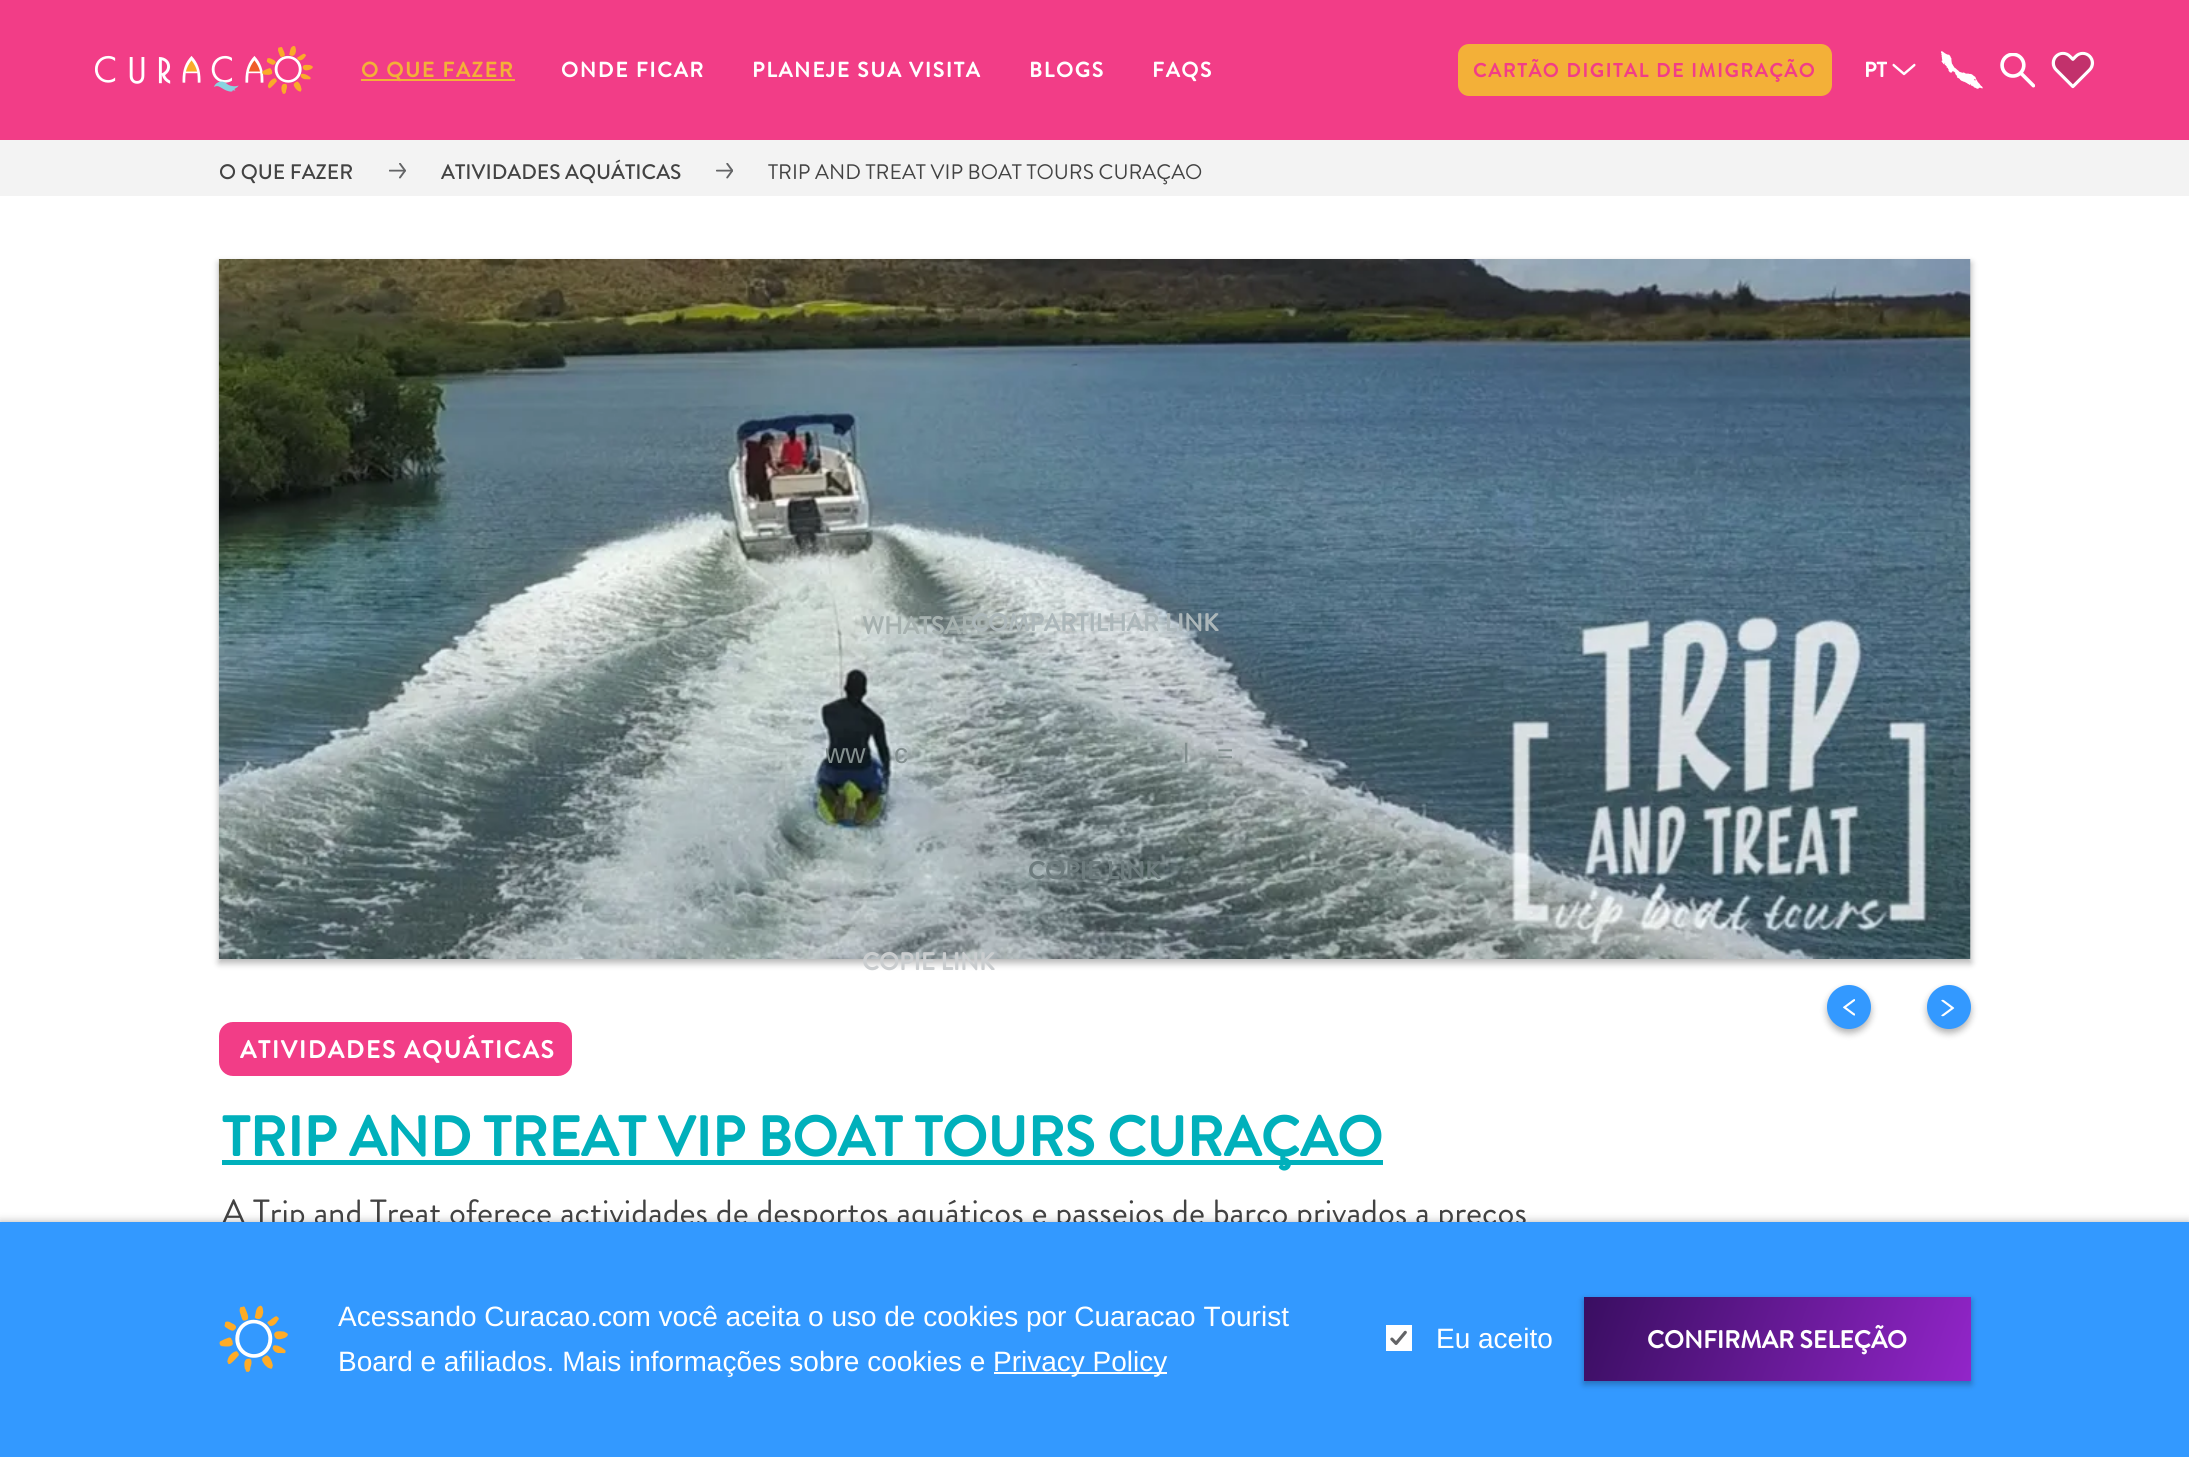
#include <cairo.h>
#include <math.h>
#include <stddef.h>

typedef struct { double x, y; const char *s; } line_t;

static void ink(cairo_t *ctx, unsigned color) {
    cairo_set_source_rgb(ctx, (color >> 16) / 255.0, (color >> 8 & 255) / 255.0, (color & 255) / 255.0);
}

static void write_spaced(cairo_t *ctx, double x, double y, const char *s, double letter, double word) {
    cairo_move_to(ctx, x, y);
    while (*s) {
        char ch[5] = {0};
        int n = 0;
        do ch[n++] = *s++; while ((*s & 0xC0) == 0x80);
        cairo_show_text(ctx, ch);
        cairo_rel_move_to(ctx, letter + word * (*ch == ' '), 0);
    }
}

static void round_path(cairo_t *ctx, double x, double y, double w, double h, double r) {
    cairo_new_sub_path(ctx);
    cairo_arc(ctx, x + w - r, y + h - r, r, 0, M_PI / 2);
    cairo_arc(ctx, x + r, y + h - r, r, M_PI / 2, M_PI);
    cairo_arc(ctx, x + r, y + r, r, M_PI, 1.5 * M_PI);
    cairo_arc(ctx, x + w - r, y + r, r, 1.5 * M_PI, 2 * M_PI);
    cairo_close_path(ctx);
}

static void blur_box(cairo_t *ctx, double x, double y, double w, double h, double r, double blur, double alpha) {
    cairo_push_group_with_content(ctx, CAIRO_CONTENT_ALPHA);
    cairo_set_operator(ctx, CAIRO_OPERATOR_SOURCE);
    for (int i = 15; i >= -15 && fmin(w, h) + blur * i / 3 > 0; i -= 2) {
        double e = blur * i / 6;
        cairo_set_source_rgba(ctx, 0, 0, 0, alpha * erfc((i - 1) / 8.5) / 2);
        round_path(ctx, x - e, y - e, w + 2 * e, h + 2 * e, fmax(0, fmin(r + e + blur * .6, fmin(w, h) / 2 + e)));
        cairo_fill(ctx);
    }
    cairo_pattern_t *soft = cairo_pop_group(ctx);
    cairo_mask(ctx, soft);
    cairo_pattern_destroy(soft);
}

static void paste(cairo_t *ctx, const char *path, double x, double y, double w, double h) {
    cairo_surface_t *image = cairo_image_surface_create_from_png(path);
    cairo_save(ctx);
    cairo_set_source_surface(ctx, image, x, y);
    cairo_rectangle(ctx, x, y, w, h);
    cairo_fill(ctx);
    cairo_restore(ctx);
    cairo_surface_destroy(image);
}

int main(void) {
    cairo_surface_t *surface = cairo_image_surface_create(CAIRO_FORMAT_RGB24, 2189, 1457);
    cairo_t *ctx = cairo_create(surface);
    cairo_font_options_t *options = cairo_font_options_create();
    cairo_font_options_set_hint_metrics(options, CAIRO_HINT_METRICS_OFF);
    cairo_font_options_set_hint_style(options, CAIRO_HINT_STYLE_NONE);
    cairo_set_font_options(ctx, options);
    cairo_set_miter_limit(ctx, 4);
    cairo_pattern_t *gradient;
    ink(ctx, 0xFFFFFF);
    cairo_paint(ctx);
    ink(ctx, 0xF23D87);
    cairo_rectangle(ctx, 0, 0, 2189, 140);
    cairo_fill(ctx);
    paste(ctx, "media/1.png", 95, 46, 218, 48);
    ink(ctx, 0xF3B038);
    cairo_rectangle(ctx, 361, 79, 154, 2);
    cairo_fill(ctx);
    cairo_select_font_face(ctx, "Brandon Grotesque", CAIRO_FONT_SLANT_NORMAL, CAIRO_FONT_WEIGHT_BOLD);
    cairo_set_font_size(ctx, 21);
    write_spaced(ctx, 361, 77, "O QUE FAZER", 1.75, 0);
    ink(ctx, 0xFFFFFF);
    {
        static const line_t items[] = {
            {561, 77, "ONDE FICAR"},
            {752, 77, "PLANEJE SUA VISITA"},
            {1029, 77, "BLOGS"},
            {1152, 77, "FAQS"},
        };
        for (size_t i = 0; i < sizeof items / sizeof *items; i++) {
            write_spaced(ctx, items[i].x, items[i].y, items[i].s, 1.75, 0);
        }
    }
    ink(ctx, 0xF3B038);
    round_path(ctx, 1458, 44, 374, 52, 11);
    cairo_fill(ctx);
    cairo_set_font_size(ctx, 19.25);
    ink(ctx, 0xF23D87);
    write_spaced(ctx, 1473, 77, "CARTÃO DIGITAL DE IMIGRAÇÃO", 1.75, 0);
    cairo_set_font_size(ctx, 21);
    ink(ctx, 0xFFFFFF);
    cairo_move_to(ctx, 1864, 77);
    cairo_show_text(ctx, "PT");
    paste(ctx, "media/2.png", 1892, 63, 24, 13);
    paste(ctx, "media/3.png", 1941, 51, 42, 38);
    paste(ctx, "media/4.png", 2000, 53, 35, 35);
    paste(ctx, "media/5.png", 2051, 51, 44, 38);
    ink(ctx, 0xF3F3F3);
    cairo_rectangle(ctx, 0, 140, 2189, 56);
    cairo_fill(ctx);
    cairo_select_font_face(ctx, "Brandon Grotesque Medium", CAIRO_FONT_SLANT_NORMAL, CAIRO_FONT_WEIGHT_NORMAL);
    ink(ctx, 0x434343);
    cairo_move_to(ctx, 219, 179);
    cairo_show_text(ctx, "O QUE FAZER");
    paste(ctx, "media/6.png", 389, 163, 17, 16);
    cairo_move_to(ctx, 441, 179);
    cairo_show_text(ctx, "ATIVIDADES AQUÁTICAS");
    paste(ctx, "media/7.png", 716, 163, 17, 16);
    cairo_select_font_face(ctx, "Brandon Grotesque", CAIRO_FONT_SLANT_NORMAL, CAIRO_FONT_WEIGHT_NORMAL);
    cairo_move_to(ctx, 768, 179);
    cairo_show_text(ctx, "TRIP AND TREAT VIP BOAT TOURS CURAÇAO");
    ink(ctx, 0x000000);
    blur_box(ctx, 219, 263, 1752, 700, 0, 3.5, 0.3);
    paste(ctx, "media/8.png", 218, 259, 1753, 700);
    blur_box(ctx, 1827, 989, 44, 44, 22, 3.5, 0.3);
    ink(ctx, 0x3399FF);
    cairo_arc(ctx, 1849, 1007, 22, 0, 2 * M_PI);
    cairo_fill(ctx);
    paste(ctx, "media/9.png", 1843, 999, 12, 17);
    ink(ctx, 0x000000);
    blur_box(ctx, 1927, 989, 44, 44, 22, 3.5, 0.3);
    ink(ctx, 0x3399FF);
    cairo_arc(ctx, 1949, 1007, 22, 0, 2 * M_PI);
    cairo_fill(ctx);
    paste(ctx, "media/10.png", 1941, 999, 14, 18);
    cairo_select_font_face(ctx, "Brandon Grotesque", CAIRO_FONT_SLANT_NORMAL, CAIRO_FONT_WEIGHT_BOLD);
    cairo_set_font_size(ctx, 24.5);
    ink(ctx, 0xA6B1AF);
    cairo_move_to(ctx, 862, 634);
    cairo_show_text(ctx, "WHATSAPP");
    ink(ctx, 0xCACDCF);
    cairo_move_to(ctx, 862, 970);
    cairo_show_text(ctx, "COPIE LINK");
    ink(ctx, 0xF23D87);
    round_path(ctx, 219, 1022, 353, 54, 14);
    cairo_fill(ctx);
    ink(ctx, 0xFFFFFF);
    write_spaced(ctx, 240, 1058, "ATIVIDADES AQUÁTICAS", 1.75, 0);
    ink(ctx, 0x00B0BB);
    cairo_rectangle(ctx, 222, 1160, 1161, 5);
    cairo_fill(ctx);
    cairo_set_font_size(ctx, 56);
    cairo_move_to(ctx, 222, 1156);
    cairo_show_text(ctx, "TRIP AND TREAT VIP BOAT TOURS CURAÇAO");
    cairo_select_font_face(ctx, "Brandon Grotesque", CAIRO_FONT_SLANT_NORMAL, CAIRO_FONT_WEIGHT_NORMAL);
    cairo_set_font_size(ctx, 35);
    ink(ctx, 0x434343);
    cairo_move_to(ctx, 222, 1224);
    cairo_show_text(ctx, "A Trip and Treat oferece actividades de desportos aquáticos e passeios de barco privados a preços");
    cairo_select_font_face(ctx, "Brandon Grotesque", CAIRO_FONT_SLANT_NORMAL, CAIRO_FONT_WEIGHT_BOLD);
    cairo_set_font_size(ctx, 24.5);
    ink(ctx, 0xACB7BA);
    cairo_move_to(ctx, 971, 631);
    cairo_show_text(ctx, "COMPARTILHAR LINK");
    cairo_save(ctx);
    cairo_rectangle(ctx, 826, 739, 539, 31);
    cairo_clip(ctx);
    cairo_select_font_face(ctx, "Liberation Sans", CAIRO_FONT_SLANT_NORMAL, CAIRO_FONT_WEIGHT_NORMAL);
    cairo_set_font_size(ctx, 28);
    ink(ctx, 0x828E8E);
    cairo_move_to(ctx, 825, 763);
    cairo_show_text(ctx, "ww");
    cairo_restore(ctx);
    cairo_select_font_face(ctx, "Liberation Sans", CAIRO_FONT_SLANT_NORMAL, CAIRO_FONT_WEIGHT_NORMAL);
    cairo_set_font_size(ctx, 28);
    ink(ctx, 0x828E8E);
    {
        static const line_t items[] = {
            {894, 763, "c"},
            {1183, 763, "l"},
            {1217, 763, "="},
        };
        for (size_t i = 0; i < sizeof items / sizeof *items; i++) {
            cairo_move_to(ctx, items[i].x, items[i].y);
            cairo_show_text(ctx, items[i].s);
        }
    }
    cairo_select_font_face(ctx, "Brandon Grotesque", CAIRO_FONT_SLANT_NORMAL, CAIRO_FONT_WEIGHT_BOLD);
    cairo_set_font_size(ctx, 24.5);
    ink(ctx, 0x6D7B7D);
    cairo_move_to(ctx, 1028, 879);
    cairo_show_text(ctx, "COPIE LINK");
    ink(ctx, 0x000000);
    blur_box(ctx, 0, 1222, 2189, 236, 0, 4.5, 0.3);
    ink(ctx, 0x3399FF);
    cairo_rectangle(ctx, 0, 1222, 2189, 235);
    cairo_fill(ctx);
    paste(ctx, "media/11.png", 219, 1305, 69, 67);
    cairo_select_font_face(ctx, "Liberation Sans", CAIRO_FONT_SLANT_NORMAL, CAIRO_FONT_WEIGHT_NORMAL);
    cairo_set_font_size(ctx, 28);
    ink(ctx, 0xFFFFFF);
    cairo_move_to(ctx, 338, 1326);
    cairo_show_text(ctx, "Acessando Curacao.com você aceita o uso de cookies por Cuaracao Tourist");
    cairo_move_to(ctx, 338, 1371);
    cairo_show_text(ctx, "Board e afiliados. Mais informações sobre cookies e");
    cairo_rectangle(ctx, 994, 1372, 173, 2);
    cairo_fill(ctx);
    cairo_move_to(ctx, 993, 1371);
    cairo_show_text(ctx, "Privacy Policy");
    cairo_rectangle(ctx, 1386, 1325, 26, 26);
    cairo_fill(ctx);
    paste(ctx, "media/12.png", 1390, 1330, 17, 15);
    cairo_move_to(ctx, 1436, 1348);
    cairo_show_text(ctx, "Eu aceito");
    ink(ctx, 0x000000);
    blur_box(ctx, 1584, 1300, 387, 84, 0, 3.5, 0.3);
    gradient = cairo_pattern_create_linear(1961, 1406, 1593, 1272);
    cairo_pattern_add_color_stop_rgba(gradient, 0, 0.573, 0.145, 0.788, 1);
    cairo_pattern_add_color_stop_rgba(gradient, 1, 0.224, 0.055, 0.38, 1);
    cairo_set_source(ctx, gradient);
    cairo_pattern_destroy(gradient);
    cairo_rectangle(ctx, 1584, 1297, 387, 84);
    cairo_fill(ctx);
    cairo_select_font_face(ctx, "Brandon Grotesque", CAIRO_FONT_SLANT_NORMAL, CAIRO_FONT_WEIGHT_BOLD);
    cairo_set_font_size(ctx, 24.5);
    ink(ctx, 0xFFFFFF);
    cairo_move_to(ctx, 1647, 1348);
    cairo_show_text(ctx, "CONFIRMAR SELEÇÃO");
    cairo_surface_write_to_png(surface, "image.png");
    cairo_font_options_destroy(options);
    cairo_destroy(ctx);
    cairo_surface_destroy(surface);
    return 0;
}
